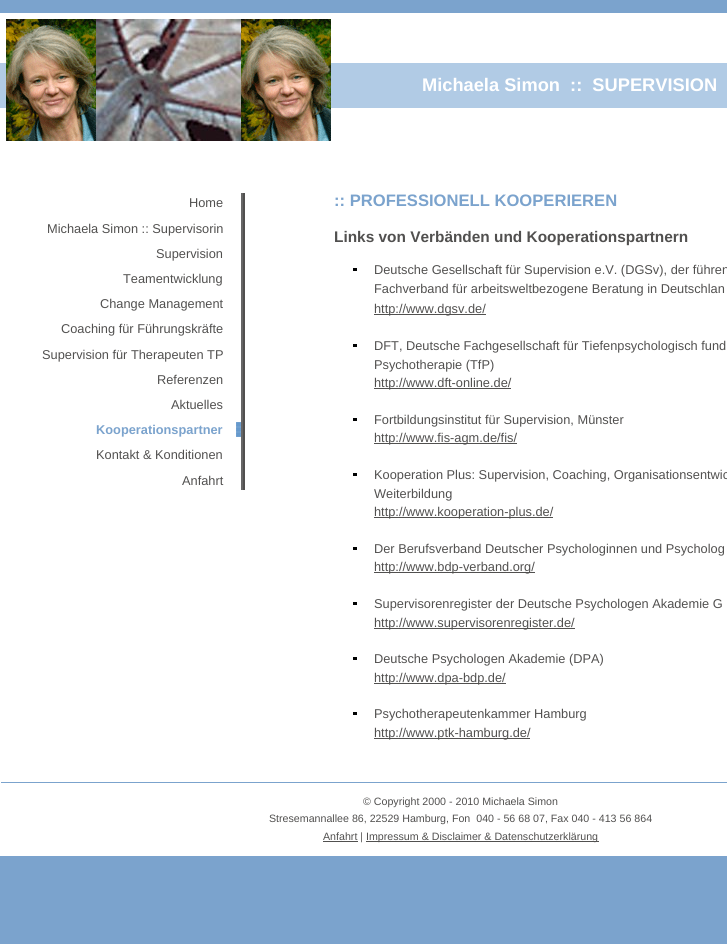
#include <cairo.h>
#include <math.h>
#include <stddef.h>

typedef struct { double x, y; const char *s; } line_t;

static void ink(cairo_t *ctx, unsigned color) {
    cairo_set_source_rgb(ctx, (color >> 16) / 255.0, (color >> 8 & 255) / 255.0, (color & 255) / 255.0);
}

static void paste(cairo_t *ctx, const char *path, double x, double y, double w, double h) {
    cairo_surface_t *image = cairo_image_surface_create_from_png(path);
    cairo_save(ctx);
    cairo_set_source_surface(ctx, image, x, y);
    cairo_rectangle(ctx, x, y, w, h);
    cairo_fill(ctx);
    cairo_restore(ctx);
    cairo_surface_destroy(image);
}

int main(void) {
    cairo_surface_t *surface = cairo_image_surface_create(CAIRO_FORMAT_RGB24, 727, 944);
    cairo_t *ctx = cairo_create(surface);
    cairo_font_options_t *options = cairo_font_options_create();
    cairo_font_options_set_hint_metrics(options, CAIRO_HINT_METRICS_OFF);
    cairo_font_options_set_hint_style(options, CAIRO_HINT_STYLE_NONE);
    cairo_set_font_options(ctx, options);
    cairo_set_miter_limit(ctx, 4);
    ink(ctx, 0x7BA3CD);
    cairo_paint(ctx);
    ink(ctx, 0xFFFFFF);
    cairo_rectangle(ctx, 0, 13, 727, 843);
    cairo_fill(ctx);
    ink(ctx, 0xB1CBE5);
    cairo_rectangle(ctx, 0, 63, 727, 45);
    cairo_fill(ctx);
    paste(ctx, "media/1.png", 6, 19, 90, 122);
    paste(ctx, "media/2.png", 96, 19, 145, 122);
    paste(ctx, "media/1.png", 241, 19, 90, 122);
    cairo_select_font_face(ctx, "Liberation Sans", CAIRO_FONT_SLANT_NORMAL, CAIRO_FONT_WEIGHT_BOLD);
    cairo_set_font_size(ctx, 18.25);
    ink(ctx, 0xFFFFFF);
    cairo_move_to(ctx, 422, 91);
    cairo_show_text(ctx, "Michaela Simon  ::  SUPERVISION");
    ink(ctx, 0x666666);
    cairo_rectangle(ctx, 241, 193, 2, 297);
    cairo_fill(ctx);
    ink(ctx, 0x51504F);
    cairo_rectangle(ctx, 243, 193, 2, 297);
    cairo_fill(ctx);
    cairo_select_font_face(ctx, "Liberation Sans", CAIRO_FONT_SLANT_NORMAL, CAIRO_FONT_WEIGHT_NORMAL);
    cairo_set_font_size(ctx, 12.8);
    {
        static const line_t items[] = {
            {189, 207, "Home"},
            {47, 233, "Michaela Simon :: Supervisorin"},
            {156, 258, "Supervision"},
            {123, 283, "Teamentwicklung"},
            {100, 308, "Change Management"},
            {61, 333, "Coaching für Führungskräfte"},
            {42, 359, "Supervision für Therapeuten TP"},
            {157, 384, "Referenzen"},
            {171, 409, "Aktuelles"},
        };
        for (size_t i = 0; i < sizeof items / sizeof *items; i++) {
            cairo_move_to(ctx, items[i].x, items[i].y);
            cairo_show_text(ctx, items[i].s);
        }
    }
    cairo_select_font_face(ctx, "Liberation Sans", CAIRO_FONT_SLANT_NORMAL, CAIRO_FONT_WEIGHT_BOLD);
    ink(ctx, 0x7BA3CD);
    cairo_move_to(ctx, 96, 434);
    cairo_show_text(ctx, "Kooperationspartner");
    paste(ctx, "media/3.png", 236, 422, 5, 15);
    cairo_select_font_face(ctx, "Liberation Sans", CAIRO_FONT_SLANT_NORMAL, CAIRO_FONT_WEIGHT_NORMAL);
    ink(ctx, 0x51504F);
    cairo_move_to(ctx, 96, 459);
    cairo_show_text(ctx, "Kontakt & Konditionen");
    cairo_move_to(ctx, 182, 485);
    cairo_show_text(ctx, "Anfahrt");
    cairo_select_font_face(ctx, "Liberation Sans", CAIRO_FONT_SLANT_NORMAL, CAIRO_FONT_WEIGHT_BOLD);
    cairo_set_font_size(ctx, 16.6);
    ink(ctx, 0x7BA3CD);
    cairo_move_to(ctx, 334, 206);
    cairo_show_text(ctx, ":: PROFESSIONELL KOOPERIEREN");
    cairo_set_font_size(ctx, 15.4);
    ink(ctx, 0x51504F);
    cairo_move_to(ctx, 334, 242);
    cairo_show_text(ctx, "Links von Verbänden und Kooperationspartnern");
    ink(ctx, 0x000102);
    cairo_rectangle(ctx, 353, 268, 4, 3);
    cairo_fill(ctx);
    cairo_select_font_face(ctx, "Liberation Sans", CAIRO_FONT_SLANT_NORMAL, CAIRO_FONT_WEIGHT_NORMAL);
    cairo_set_font_size(ctx, 12.8);
    ink(ctx, 0x51504F);
    cairo_move_to(ctx, 374, 274);
    cairo_show_text(ctx, "Deutsche Gesellschaft für Supervision e.V. (DGSv), der führen");
    cairo_move_to(ctx, 374, 293);
    cairo_show_text(ctx, "Fachverband für arbeitsweltbezogene Beratung in Deutschlan");
    cairo_rectangle(ctx, 374, 314, 112, 1);
    cairo_fill(ctx);
    cairo_move_to(ctx, 374, 313);
    cairo_show_text(ctx, "http://www.dgsv.de/");
    ink(ctx, 0x000102);
    cairo_rectangle(ctx, 353, 344, 4, 3);
    cairo_fill(ctx);
    ink(ctx, 0x51504F);
    cairo_move_to(ctx, 374, 350);
    cairo_show_text(ctx, "DFT, Deutsche Fachgesellschaft für Tiefenpsychologisch fund");
    cairo_move_to(ctx, 374, 369);
    cairo_show_text(ctx, "Psychotherapie (TfP)");
    cairo_rectangle(ctx, 374, 388, 137, 1);
    cairo_fill(ctx);
    cairo_move_to(ctx, 374, 387);
    cairo_show_text(ctx, "http://www.dft-online.de/");
    ink(ctx, 0x000102);
    cairo_rectangle(ctx, 353, 418, 4, 3);
    cairo_fill(ctx);
    ink(ctx, 0x51504F);
    cairo_move_to(ctx, 374, 424);
    cairo_show_text(ctx, "Fortbildungsinstitut für Supervision, Münster");
    cairo_rectangle(ctx, 374, 443, 143, 1);
    cairo_fill(ctx);
    cairo_move_to(ctx, 374, 442);
    cairo_show_text(ctx, "http://www.fis-agm.de/fis/");
    ink(ctx, 0x000102);
    cairo_rectangle(ctx, 353, 473, 4, 3);
    cairo_fill(ctx);
    ink(ctx, 0x51504F);
    cairo_move_to(ctx, 374, 479);
    cairo_show_text(ctx, "Kooperation Plus: Supervision, Coaching, Organisationsentwic");
    cairo_move_to(ctx, 374, 498);
    cairo_show_text(ctx, "Weiterbildung");
    cairo_rectangle(ctx, 374, 517, 179, 1);
    cairo_fill(ctx);
    cairo_move_to(ctx, 374, 516);
    cairo_show_text(ctx, "http://www.kooperation-plus.de/");
    ink(ctx, 0x000102);
    cairo_rectangle(ctx, 353, 547, 4, 3);
    cairo_fill(ctx);
    ink(ctx, 0x51504F);
    cairo_move_to(ctx, 374, 553);
    cairo_show_text(ctx, "Der Berufsverband Deutscher Psychologinnen und Psycholog");
    cairo_rectangle(ctx, 374, 572, 161, 1);
    cairo_fill(ctx);
    cairo_move_to(ctx, 374, 571);
    cairo_show_text(ctx, "http://www.bdp-verband.org/");
    ink(ctx, 0x000102);
    cairo_rectangle(ctx, 353, 602, 4, 3);
    cairo_fill(ctx);
    ink(ctx, 0x51504F);
    cairo_move_to(ctx, 374, 608);
    cairo_show_text(ctx, "Supervisorenregister der Deutsche Psychologen Akademie G");
    cairo_rectangle(ctx, 374, 628, 201, 1);
    cairo_fill(ctx);
    cairo_move_to(ctx, 374, 627);
    cairo_show_text(ctx, "http://www.supervisorenregister.de/");
    ink(ctx, 0x000102);
    cairo_rectangle(ctx, 353, 657, 4, 3);
    cairo_fill(ctx);
    ink(ctx, 0x51504F);
    cairo_move_to(ctx, 374, 663);
    cairo_show_text(ctx, "Deutsche Psychologen Akademie (DPA)");
    cairo_rectangle(ctx, 374, 683, 132, 1);
    cairo_fill(ctx);
    cairo_move_to(ctx, 374, 682);
    cairo_show_text(ctx, "http://www.dpa-bdp.de/");
    ink(ctx, 0x000102);
    cairo_rectangle(ctx, 353, 712, 4, 3);
    cairo_fill(ctx);
    ink(ctx, 0x51504F);
    cairo_move_to(ctx, 374, 718);
    cairo_show_text(ctx, "Psychotherapeutenkammer Hamburg");
    cairo_rectangle(ctx, 374, 738, 156, 1);
    cairo_fill(ctx);
    cairo_move_to(ctx, 374, 737);
    cairo_show_text(ctx, "http://www.ptk-hamburg.de/");
    ink(ctx, 0x7BA3CD);
    cairo_rectangle(ctx, 1, 782, 726, 1);
    cairo_fill(ctx);
    cairo_set_font_size(ctx, 10.65);
    ink(ctx, 0x51504F);
    cairo_move_to(ctx, 363, 805);
    cairo_show_text(ctx, "© Copyright 2000 - 2010 Michaela Simon");
    cairo_move_to(ctx, 269, 822);
    cairo_show_text(ctx, "Stresemannallee 86, 22529 Hamburg, Fon  040 - 56 68 07, Fax 040 - 413 56 864");
    cairo_rectangle(ctx, 323, 841, 35, 1);
    cairo_fill(ctx);
    cairo_move_to(ctx, 323, 840);
    cairo_show_text(ctx, "Anfahrt |");
    cairo_rectangle(ctx, 366, 841, 233, 1);
    cairo_fill(ctx);
    cairo_move_to(ctx, 366, 840);
    cairo_show_text(ctx, "Impressum & Disclaimer & Datenschutzerklärung");
    cairo_surface_write_to_png(surface, "image.png");
    cairo_font_options_destroy(options);
    cairo_destroy(ctx);
    cairo_surface_destroy(surface);
    return 0;
}
